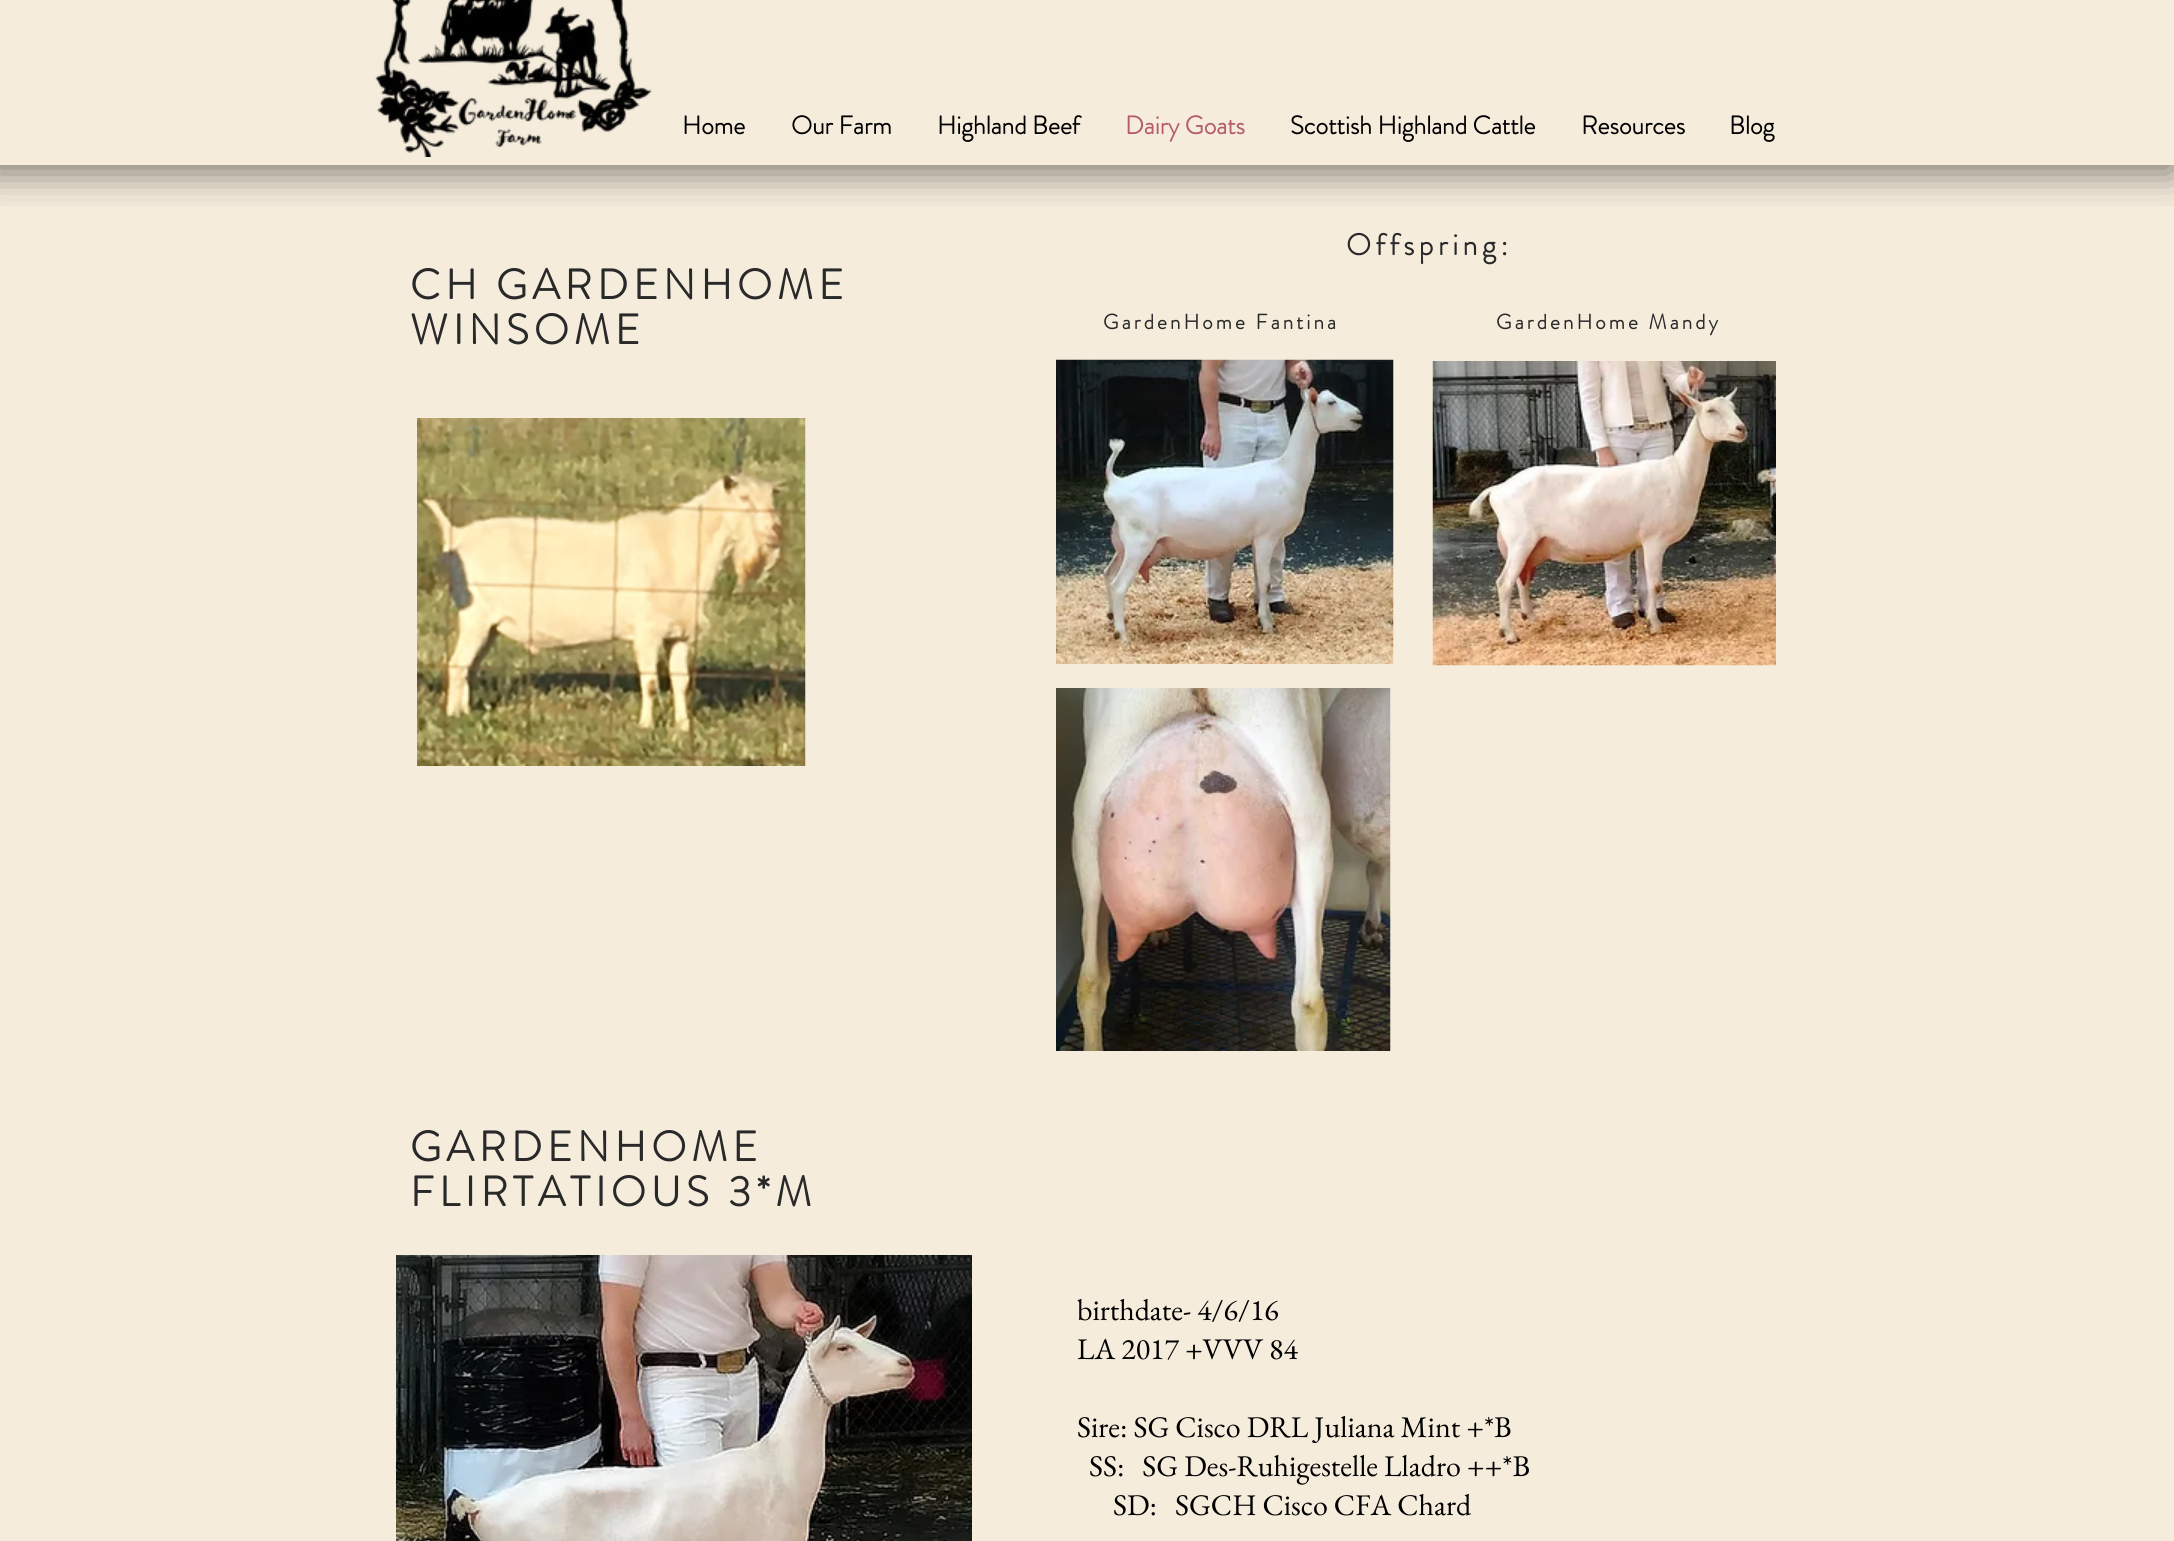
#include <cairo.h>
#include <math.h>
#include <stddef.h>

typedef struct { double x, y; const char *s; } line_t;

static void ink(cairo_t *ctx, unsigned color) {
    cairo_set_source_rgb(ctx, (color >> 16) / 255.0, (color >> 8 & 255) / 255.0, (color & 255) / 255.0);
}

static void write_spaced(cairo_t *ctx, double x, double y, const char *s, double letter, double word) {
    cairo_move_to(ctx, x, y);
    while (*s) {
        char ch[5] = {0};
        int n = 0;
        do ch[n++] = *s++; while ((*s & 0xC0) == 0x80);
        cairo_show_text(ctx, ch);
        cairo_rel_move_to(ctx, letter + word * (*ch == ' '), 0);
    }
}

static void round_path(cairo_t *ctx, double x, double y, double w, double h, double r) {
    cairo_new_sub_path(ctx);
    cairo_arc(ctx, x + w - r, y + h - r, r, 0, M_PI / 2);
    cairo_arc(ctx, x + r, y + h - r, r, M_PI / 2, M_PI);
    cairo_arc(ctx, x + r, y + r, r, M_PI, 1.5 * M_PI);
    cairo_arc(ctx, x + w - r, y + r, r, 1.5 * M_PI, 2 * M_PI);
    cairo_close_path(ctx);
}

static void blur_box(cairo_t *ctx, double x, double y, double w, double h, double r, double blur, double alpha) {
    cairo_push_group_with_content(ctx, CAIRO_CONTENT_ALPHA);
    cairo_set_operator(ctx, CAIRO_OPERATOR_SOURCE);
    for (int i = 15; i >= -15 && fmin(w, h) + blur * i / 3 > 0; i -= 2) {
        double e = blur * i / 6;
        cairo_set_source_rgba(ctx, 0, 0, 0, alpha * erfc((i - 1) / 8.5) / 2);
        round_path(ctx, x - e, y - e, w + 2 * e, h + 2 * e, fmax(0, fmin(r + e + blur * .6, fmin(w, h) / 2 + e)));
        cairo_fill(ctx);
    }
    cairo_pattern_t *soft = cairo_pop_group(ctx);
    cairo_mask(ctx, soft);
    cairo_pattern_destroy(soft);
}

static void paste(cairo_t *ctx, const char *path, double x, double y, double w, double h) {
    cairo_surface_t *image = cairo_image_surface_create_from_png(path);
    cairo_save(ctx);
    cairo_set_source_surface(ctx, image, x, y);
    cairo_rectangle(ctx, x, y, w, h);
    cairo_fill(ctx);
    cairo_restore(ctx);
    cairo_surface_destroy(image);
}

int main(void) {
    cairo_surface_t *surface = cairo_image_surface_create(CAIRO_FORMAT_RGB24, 2174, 1541);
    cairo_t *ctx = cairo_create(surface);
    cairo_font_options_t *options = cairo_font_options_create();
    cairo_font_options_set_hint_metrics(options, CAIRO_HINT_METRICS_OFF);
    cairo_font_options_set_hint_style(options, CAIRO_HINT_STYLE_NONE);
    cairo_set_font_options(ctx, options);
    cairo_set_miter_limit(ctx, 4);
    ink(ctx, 0xF5ECDC);
    cairo_paint(ctx);
    cairo_save(ctx);
    cairo_rectangle(ctx, 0, 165, 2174, 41);
    cairo_clip(ctx);
    ink(ctx, 0x000000);
    blur_box(ctx, -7, -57, 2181, 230, 0, 19, 0.49);
    cairo_restore(ctx);
    paste(ctx, "media/1.png", 375, 0, 277, 157);
    cairo_select_font_face(ctx, "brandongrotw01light", CAIRO_FONT_SLANT_NORMAL, CAIRO_FONT_WEIGHT_BOLD);
    cairo_set_font_size(ctx, 25.5);
    ink(ctx, 0x000000);
    {
        static const line_t items[] = {
            {682, 134, "Home"},
            {791, 134, "Our Farm"},
            {937, 134, "Highland Beef"},
        };
        for (size_t i = 0; i < sizeof items / sizeof *items; i++) {
            cairo_move_to(ctx, items[i].x, items[i].y);
            cairo_show_text(ctx, items[i].s);
        }
    }
    ink(ctx, 0xB55B6B);
    cairo_move_to(ctx, 1125, 134);
    cairo_show_text(ctx, "Dairy Goats");
    ink(ctx, 0x000000);
    {
        static const line_t items[] = {
            {1290, 134, "Scottish Highland Cattle"},
            {1581, 134, "Resources"},
            {1729, 134, "Blog"},
        };
        for (size_t i = 0; i < sizeof items / sizeof *items; i++) {
            cairo_move_to(ctx, items[i].x, items[i].y);
            cairo_show_text(ctx, items[i].s);
        }
    }
    cairo_set_font_size(ctx, 30);
    ink(ctx, 0x292929);
    write_spaced(ctx, 1346, 255, "Offspring:", 4.5, 0);
    cairo_set_font_size(ctx, 42);
    write_spaced(ctx, 410, 299, "CH GARDENHOME", 5, 0);
    write_spaced(ctx, 410, 344, "WINSOME", 5, 0);
    cairo_set_font_size(ctx, 21);
    write_spaced(ctx, 1103, 329, "GardenHome Fantina", 3.1, 0);
    write_spaced(ctx, 1496, 329, "GardenHome Mandy", 3.1, 0);
    paste(ctx, "media/2.png", 417, 418, 389, 348);
    paste(ctx, "media/3.png", 1056, 359, 338, 305);
    paste(ctx, "media/4.png", 1432, 361, 344, 305);
    paste(ctx, "media/5.png", 1056, 688, 335, 363);
    cairo_set_font_size(ctx, 42);
    write_spaced(ctx, 410, 1161, "GARDENHOME", 5, 0);
    write_spaced(ctx, 410, 1206, "FLIRTATIOUS 3*M", 5, 0);
    paste(ctx, "media/6.png", 396, 1255, 576, 286);
    cairo_select_font_face(ctx, "EB Garamond", CAIRO_FONT_SLANT_NORMAL, CAIRO_FONT_WEIGHT_NORMAL);
    cairo_set_font_size(ctx, 30);
    ink(ctx, 0x000000);
    {
        static const line_t items[] = {
            {1077, 1320, "birthdate- 4/6/16"},
            {1077, 1359, "LA 2017 +VVV 84"},
            {1077, 1437, "Sire: SG Cisco DRL Juliana Mint +*B"},
            {1089, 1476, "SS:   SG Des-Ruhigestelle Lladro ++*B"},
            {1113, 1515, "SD:   SGCH Cisco CFA Chard"},
        };
        for (size_t i = 0; i < sizeof items / sizeof *items; i++) {
            cairo_move_to(ctx, items[i].x, items[i].y);
            cairo_show_text(ctx, items[i].s);
        }
    }
    cairo_surface_write_to_png(surface, "image.png");
    cairo_font_options_destroy(options);
    cairo_destroy(ctx);
    cairo_surface_destroy(surface);
    return 0;
}
